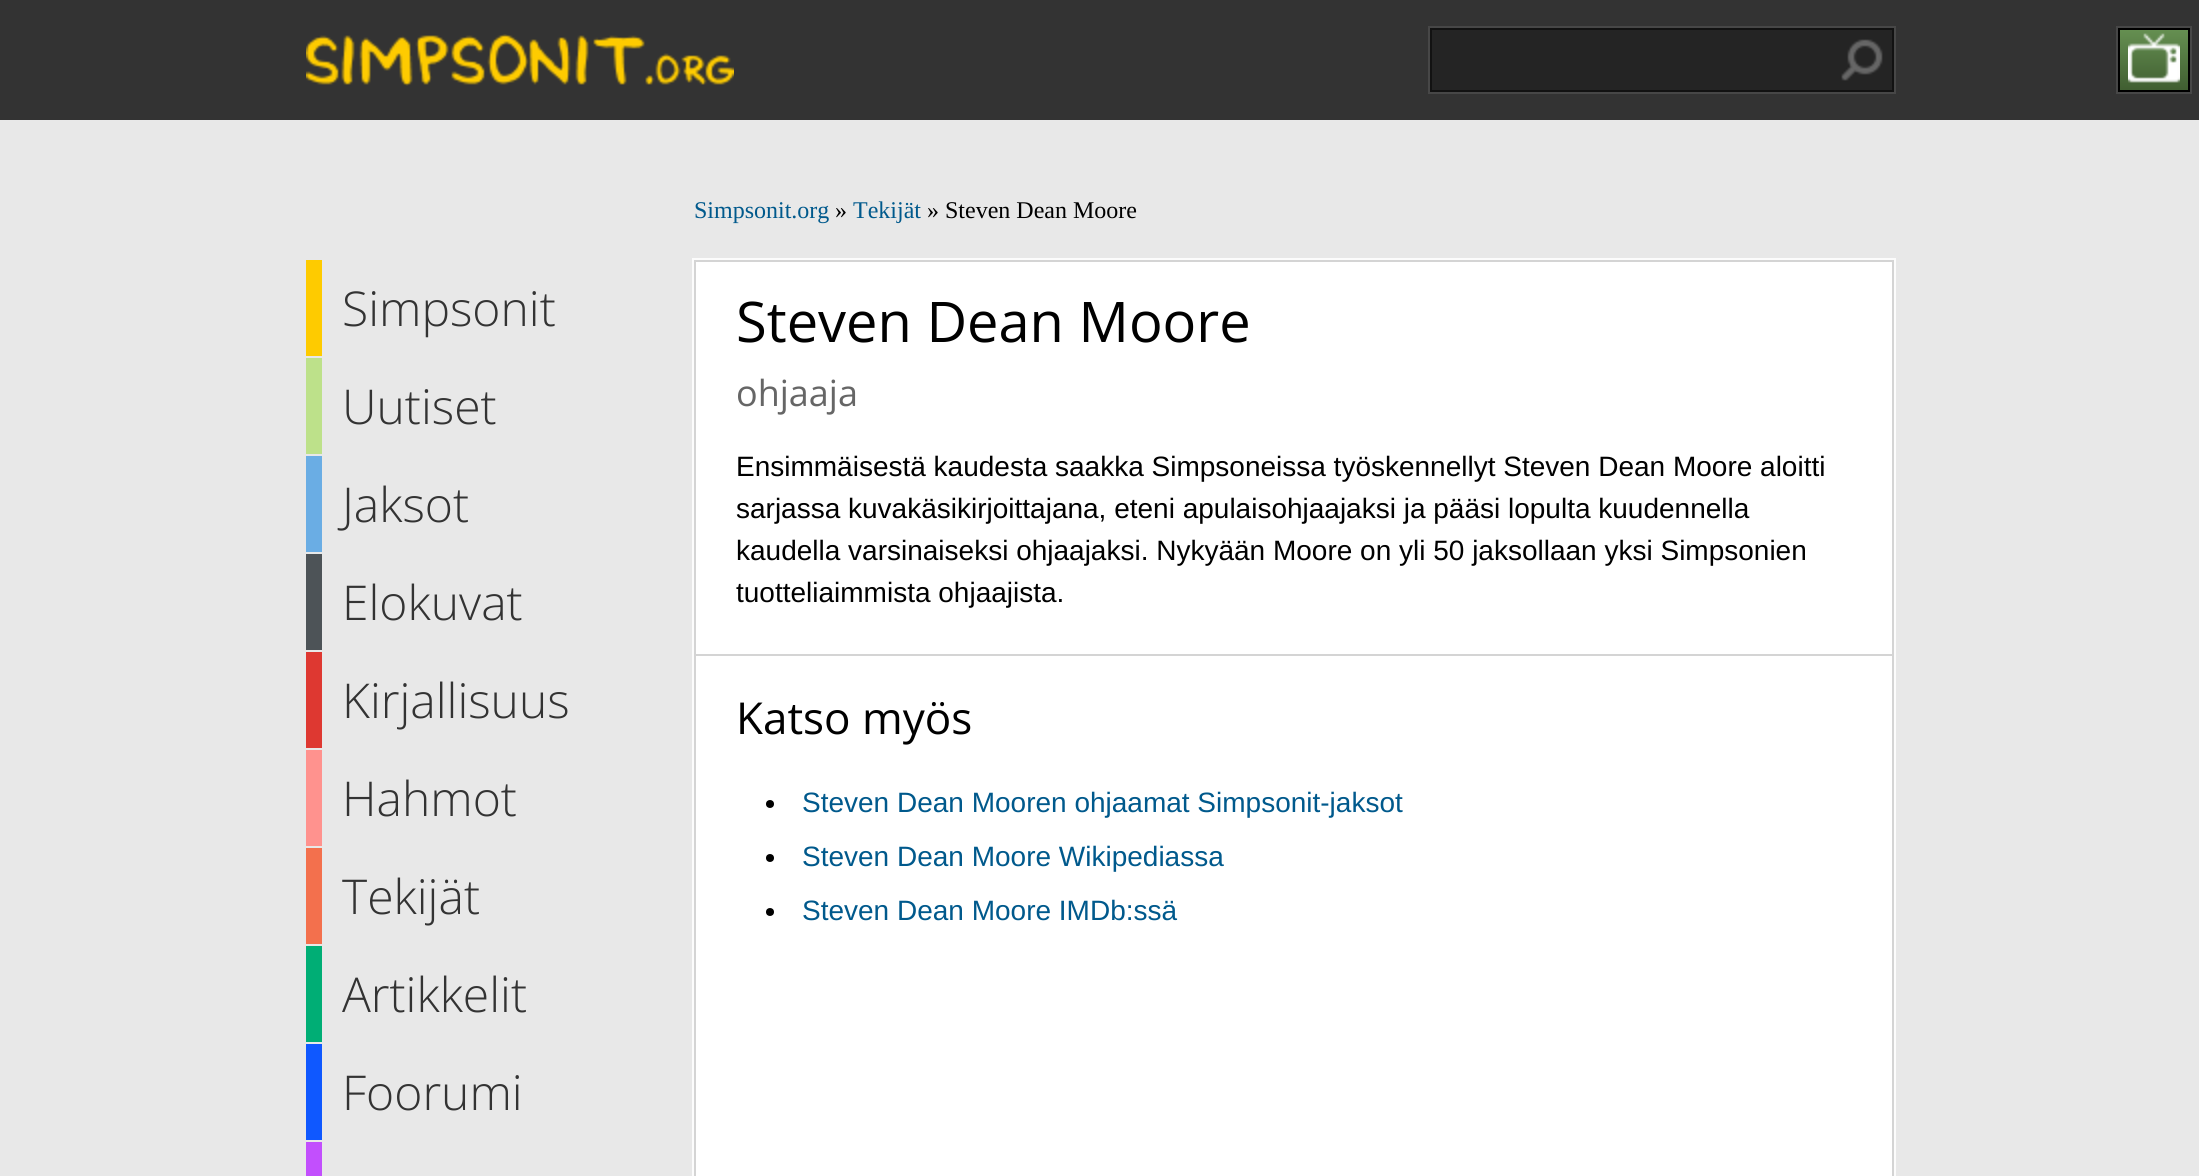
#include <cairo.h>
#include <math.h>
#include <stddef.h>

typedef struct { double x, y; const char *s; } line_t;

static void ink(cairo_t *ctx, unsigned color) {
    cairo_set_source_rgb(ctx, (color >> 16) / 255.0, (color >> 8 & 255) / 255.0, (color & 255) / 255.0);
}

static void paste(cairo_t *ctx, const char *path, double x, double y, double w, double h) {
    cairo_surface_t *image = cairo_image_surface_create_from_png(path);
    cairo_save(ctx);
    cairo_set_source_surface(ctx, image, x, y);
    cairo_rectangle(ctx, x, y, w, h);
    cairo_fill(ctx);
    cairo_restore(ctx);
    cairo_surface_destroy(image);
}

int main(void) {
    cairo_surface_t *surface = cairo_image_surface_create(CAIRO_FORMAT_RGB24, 2199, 1176);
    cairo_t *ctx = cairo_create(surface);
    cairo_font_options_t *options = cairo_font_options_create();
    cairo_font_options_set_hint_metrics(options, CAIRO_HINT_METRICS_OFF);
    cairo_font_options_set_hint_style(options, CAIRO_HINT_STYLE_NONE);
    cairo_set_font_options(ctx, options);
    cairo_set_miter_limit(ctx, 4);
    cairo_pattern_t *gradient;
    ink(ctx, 0xE8E8E8);
    cairo_paint(ctx);
    ink(ctx, 0x333333);
    cairo_rectangle(ctx, 0, 0, 2199, 120);
    cairo_fill(ctx);
    paste(ctx, "media/1.png", 306, 34, 428, 52);
    ink(ctx, 0x242424);
    cairo_rectangle(ctx, 1431, 29, 462, 62);
    cairo_fill_preserve(ctx);
    ink(ctx, 0x121212);
    cairo_stroke(ctx);
    cairo_rectangle(ctx, 1429, 27, 466, 66);
    ink(ctx, 0x474747);
    cairo_stroke(ctx);
    paste(ctx, "media/2.png", 1841, 39, 42, 42);
    gradient = cairo_pattern_create_linear(2154, 30, 2154, 90);
    cairo_pattern_add_color_stop_rgba(gradient, 0, 0.396, 0.561, 0.318, 1);
    cairo_pattern_add_color_stop_rgba(gradient, 1, 0.251, 0.369, 0.192, 1);
    cairo_set_source(ctx, gradient);
    cairo_pattern_destroy(gradient);
    cairo_rectangle(ctx, 2120, 30, 68, 60);
    cairo_fill(ctx);
    cairo_rectangle(ctx, 2119, 29, 70, 62);
    ink(ctx, 0x000000);
    cairo_stroke(ctx);
    paste(ctx, "media/3.png", 2128, 33, 52, 50);
    cairo_rectangle(ctx, 2117, 27, 74, 66);
    ink(ctx, 0x474747);
    cairo_stroke(ctx);
    cairo_select_font_face(ctx, "Liberation Serif", CAIRO_FONT_SLANT_NORMAL, CAIRO_FONT_WEIGHT_NORMAL);
    cairo_set_font_size(ctx, 24);
    ink(ctx, 0x00598C);
    cairo_move_to(ctx, 694, 218);
    cairo_show_text(ctx, "Simpsonit.org");
    ink(ctx, 0x000000);
    cairo_move_to(ctx, 835, 218);
    cairo_show_text(ctx, "»");
    ink(ctx, 0x00598C);
    cairo_move_to(ctx, 853, 218);
    cairo_show_text(ctx, "Tekijät");
    ink(ctx, 0x000000);
    cairo_move_to(ctx, 927, 218);
    cairo_show_text(ctx, "» Steven Dean Moore");
    ink(ctx, 0xFECB00);
    cairo_rectangle(ctx, 306, 260, 16, 96);
    cairo_fill(ctx);
    cairo_select_font_face(ctx, "Open Sans Light", CAIRO_FONT_SLANT_NORMAL, CAIRO_FONT_WEIGHT_NORMAL);
    cairo_set_font_size(ctx, 48);
    ink(ctx, 0x333333);
    cairo_move_to(ctx, 342, 326);
    cairo_show_text(ctx, "Simpsonit");
    ink(ctx, 0xBDE18A);
    cairo_rectangle(ctx, 306, 358, 16, 96);
    cairo_fill(ctx);
    ink(ctx, 0x333333);
    cairo_move_to(ctx, 342, 424);
    cairo_show_text(ctx, "Uutiset");
    ink(ctx, 0x6AADE4);
    cairo_rectangle(ctx, 306, 456, 16, 96);
    cairo_fill(ctx);
    ink(ctx, 0x333333);
    cairo_move_to(ctx, 342, 522);
    cairo_show_text(ctx, "Jaksot");
    ink(ctx, 0x4D5357);
    cairo_rectangle(ctx, 306, 554, 16, 96);
    cairo_fill(ctx);
    ink(ctx, 0x333333);
    cairo_move_to(ctx, 342, 620);
    cairo_show_text(ctx, "Elokuvat");
    ink(ctx, 0xDE3831);
    cairo_rectangle(ctx, 306, 652, 16, 96);
    cairo_fill(ctx);
    ink(ctx, 0x333333);
    cairo_move_to(ctx, 342, 718);
    cairo_show_text(ctx, "Kirjallisuus");
    ink(ctx, 0xFF928E);
    cairo_rectangle(ctx, 306, 750, 16, 96);
    cairo_fill(ctx);
    ink(ctx, 0x333333);
    cairo_move_to(ctx, 342, 816);
    cairo_show_text(ctx, "Hahmot");
    ink(ctx, 0xF3704D);
    cairo_rectangle(ctx, 306, 848, 16, 96);
    cairo_fill(ctx);
    ink(ctx, 0x333333);
    cairo_move_to(ctx, 342, 914);
    cairo_show_text(ctx, "Tekijät");
    ink(ctx, 0x00AE75);
    cairo_rectangle(ctx, 306, 946, 16, 96);
    cairo_fill(ctx);
    ink(ctx, 0x333333);
    cairo_move_to(ctx, 342, 1012);
    cairo_show_text(ctx, "Artikkelit");
    ink(ctx, 0x0F58FF);
    cairo_rectangle(ctx, 306, 1044, 16, 96);
    cairo_fill(ctx);
    ink(ctx, 0x333333);
    cairo_move_to(ctx, 342, 1110);
    cairo_show_text(ctx, "Foorumi");
    ink(ctx, 0xC24FFD);
    cairo_rectangle(ctx, 306, 1142, 16, 34);
    cairo_fill(ctx);
    ink(ctx, 0xFFFFFF);
    cairo_rectangle(ctx, 695, 261, 1198, 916);
    cairo_fill_preserve(ctx);
    ink(ctx, 0xD4D4D4);
    cairo_stroke(ctx);
    cairo_rectangle(ctx, 696, 654, 1196, 2);
    cairo_fill(ctx);
    ink(ctx, 0x000000);
    cairo_arc(ctx, 770, 804, 4, 0, 2 * M_PI);
    cairo_fill(ctx);
    cairo_arc(ctx, 770, 858, 4, 0, 2 * M_PI);
    cairo_fill(ctx);
    cairo_arc(ctx, 770, 912, 4, 0, 2 * M_PI);
    cairo_fill(ctx);
    cairo_rectangle(ctx, 693, 259, 1202, 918);
    ink(ctx, 0xFCFCFC);
    cairo_stroke(ctx);
    cairo_select_font_face(ctx, "Open Sans", CAIRO_FONT_SLANT_NORMAL, CAIRO_FONT_WEIGHT_NORMAL);
    cairo_set_font_size(ctx, 56);
    ink(ctx, 0x000000);
    cairo_move_to(ctx, 736, 342);
    cairo_show_text(ctx, "Steven Dean Moore");
    cairo_set_font_size(ctx, 36);
    ink(ctx, 0x666666);
    cairo_move_to(ctx, 736, 406);
    cairo_show_text(ctx, "ohjaaja");
    cairo_select_font_face(ctx, "Liberation Sans", CAIRO_FONT_SLANT_NORMAL, CAIRO_FONT_WEIGHT_NORMAL);
    cairo_set_font_size(ctx, 28);
    ink(ctx, 0x000000);
    {
        static const line_t items[] = {
            {736, 476, "Ensimmäisestä kaudesta saakka Simpsoneissa työskennellyt Steven Dean Moore aloitti"},
            {736, 518, "sarjassa kuvakäsikirjoittajana, eteni apulaisohjaajaksi ja pääsi lopulta kuudennella"},
            {736, 560, "kaudella varsinaiseksi ohjaajaksi. Nykyään Moore on yli 50 jaksollaan yksi Simpsonien"},
            {736, 602, "tuotteliaimmista ohjaajista."},
        };
        for (size_t i = 0; i < sizeof items / sizeof *items; i++) {
            cairo_move_to(ctx, items[i].x, items[i].y);
            cairo_show_text(ctx, items[i].s);
        }
    }
    cairo_select_font_face(ctx, "Open Sans", CAIRO_FONT_SLANT_NORMAL, CAIRO_FONT_WEIGHT_NORMAL);
    cairo_set_font_size(ctx, 44);
    cairo_move_to(ctx, 736, 734);
    cairo_show_text(ctx, "Katso myös");
    cairo_select_font_face(ctx, "Liberation Sans", CAIRO_FONT_SLANT_NORMAL, CAIRO_FONT_WEIGHT_NORMAL);
    cairo_set_font_size(ctx, 28);
    ink(ctx, 0x00598C);
    {
        static const line_t items[] = {
            {802, 812, "Steven Dean Mooren ohjaamat Simpsonit-jaksot"},
            {802, 866, "Steven Dean Moore Wikipediassa"},
            {802, 920, "Steven Dean Moore IMDb:ssä"},
        };
        for (size_t i = 0; i < sizeof items / sizeof *items; i++) {
            cairo_move_to(ctx, items[i].x, items[i].y);
            cairo_show_text(ctx, items[i].s);
        }
    }
    cairo_surface_write_to_png(surface, "image.png");
    cairo_font_options_destroy(options);
    cairo_destroy(ctx);
    cairo_surface_destroy(surface);
    return 0;
}
